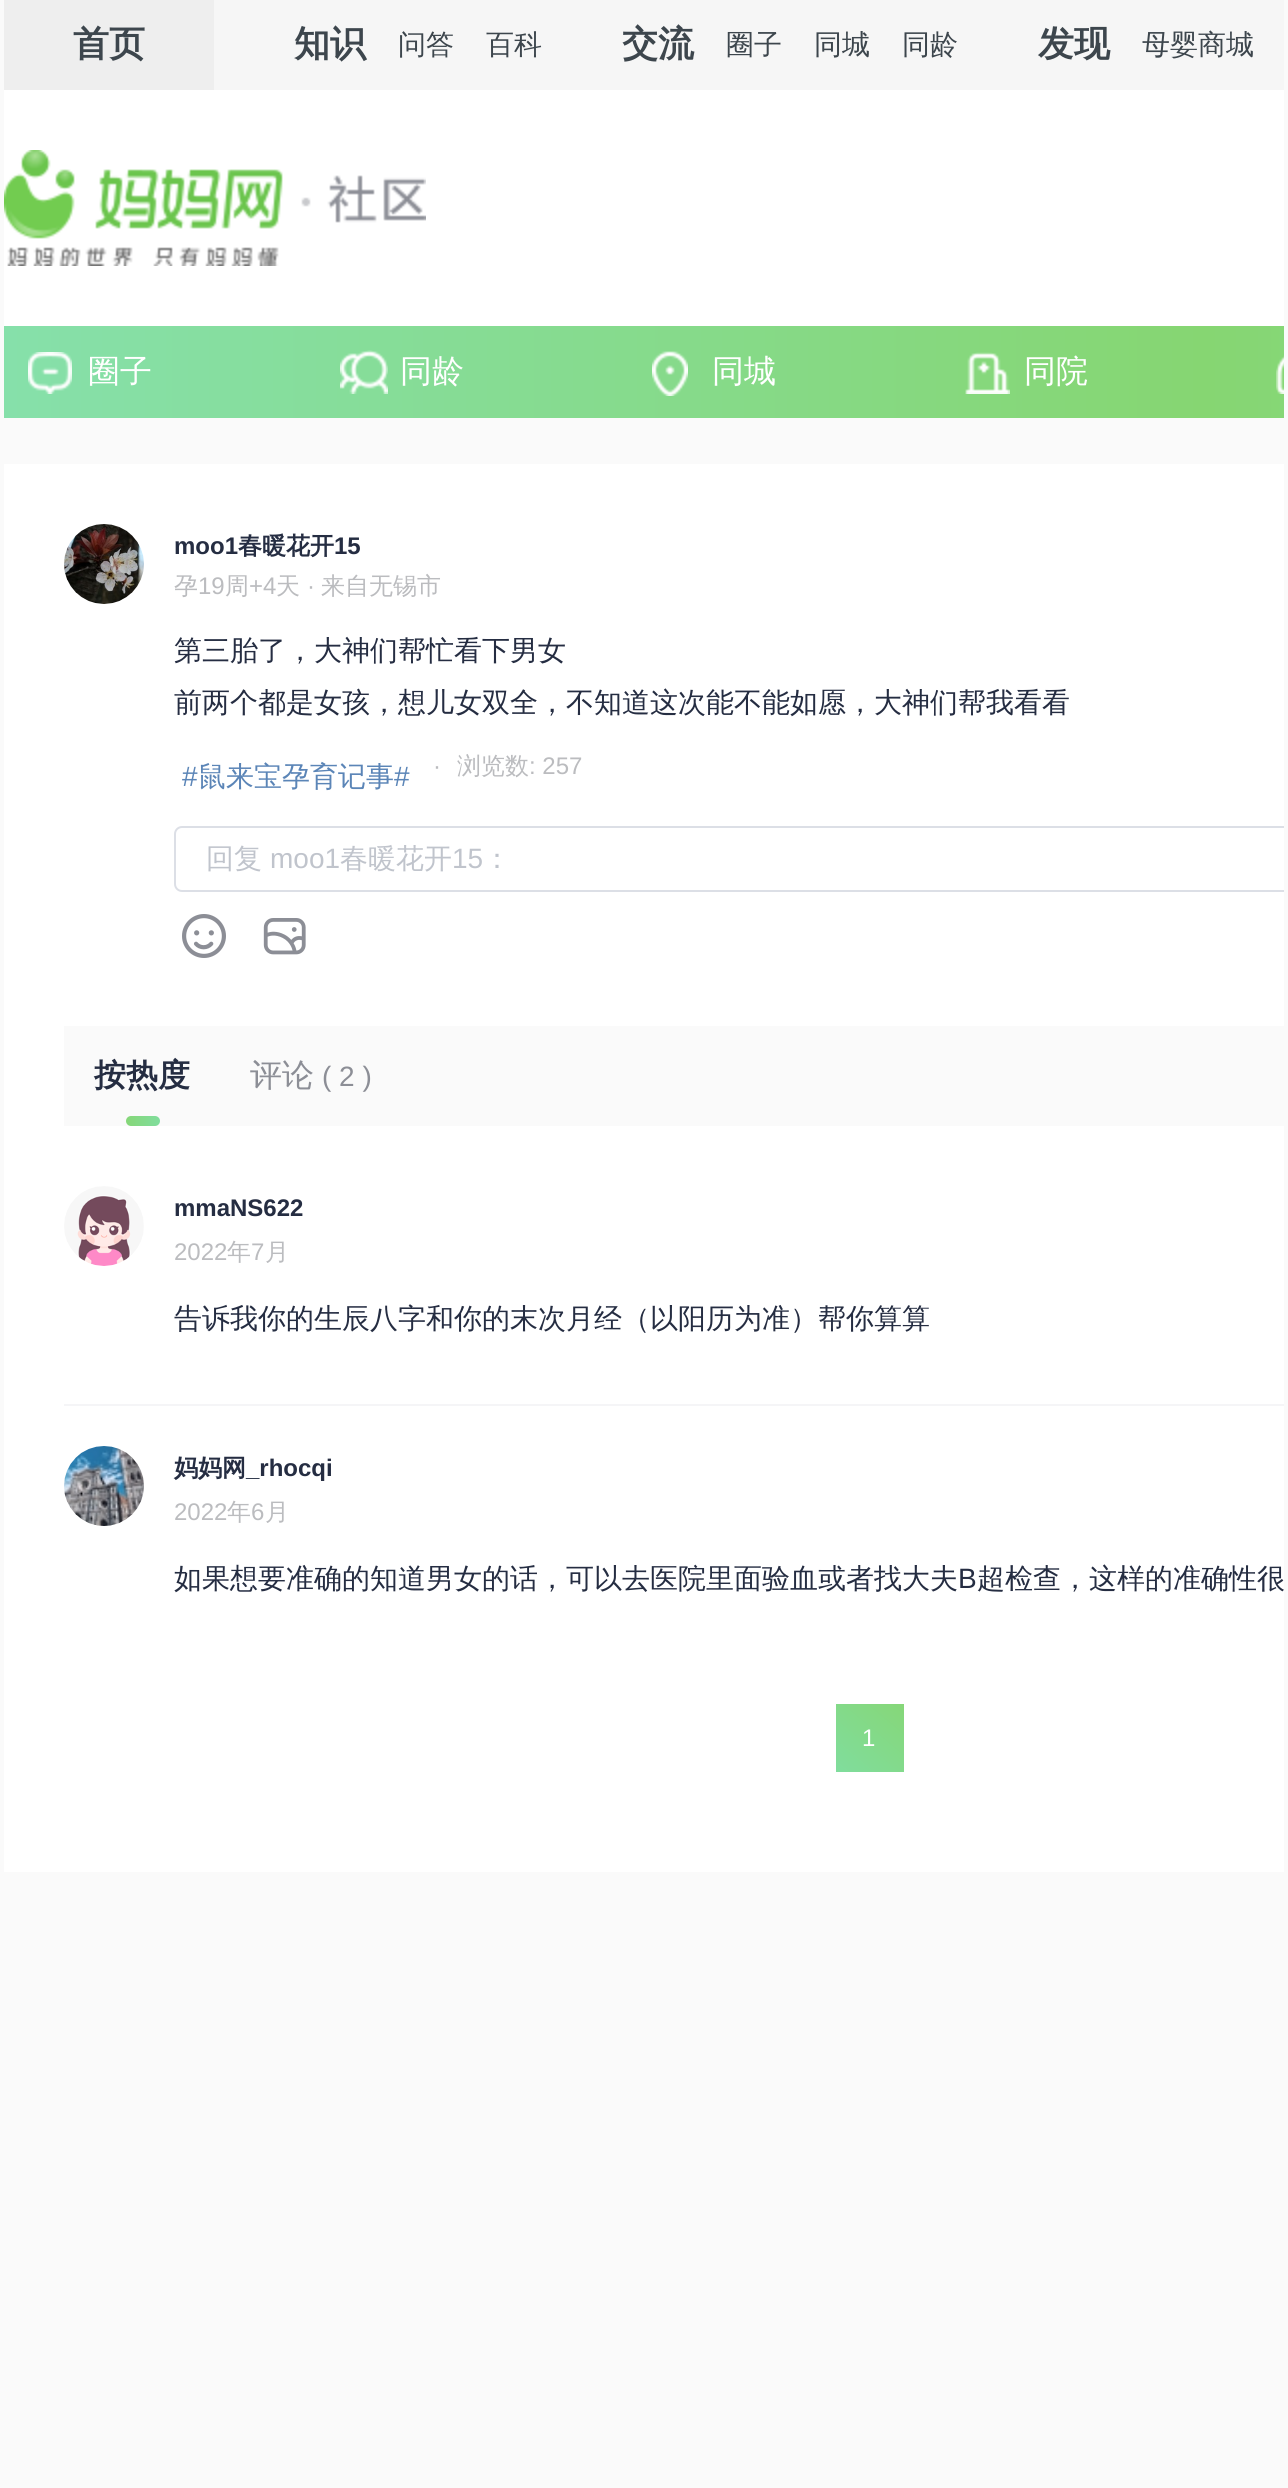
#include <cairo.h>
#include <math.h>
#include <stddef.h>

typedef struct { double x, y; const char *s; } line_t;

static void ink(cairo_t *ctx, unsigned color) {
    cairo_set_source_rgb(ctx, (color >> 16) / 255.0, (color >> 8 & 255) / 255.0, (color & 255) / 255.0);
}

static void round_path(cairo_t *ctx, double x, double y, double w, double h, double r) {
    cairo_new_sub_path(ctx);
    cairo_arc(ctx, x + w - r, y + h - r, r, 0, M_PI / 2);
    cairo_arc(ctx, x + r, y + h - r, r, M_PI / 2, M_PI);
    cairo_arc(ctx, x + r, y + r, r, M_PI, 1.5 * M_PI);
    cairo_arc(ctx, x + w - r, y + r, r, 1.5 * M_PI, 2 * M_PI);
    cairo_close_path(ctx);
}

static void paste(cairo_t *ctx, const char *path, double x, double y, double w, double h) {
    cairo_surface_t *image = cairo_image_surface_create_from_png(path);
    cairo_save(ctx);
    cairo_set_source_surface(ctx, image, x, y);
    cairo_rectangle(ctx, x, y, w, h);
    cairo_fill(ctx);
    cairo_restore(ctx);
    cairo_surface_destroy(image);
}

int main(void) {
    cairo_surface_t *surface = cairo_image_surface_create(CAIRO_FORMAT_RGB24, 1288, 2488);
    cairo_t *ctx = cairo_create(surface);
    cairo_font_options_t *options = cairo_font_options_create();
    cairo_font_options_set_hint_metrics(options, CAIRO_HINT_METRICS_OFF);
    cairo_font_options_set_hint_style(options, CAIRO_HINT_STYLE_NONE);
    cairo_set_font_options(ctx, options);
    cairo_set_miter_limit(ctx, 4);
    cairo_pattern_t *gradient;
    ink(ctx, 0xFAFAFA);
    cairo_paint(ctx);
    ink(ctx, 0xF6F6F6);
    cairo_rectangle(ctx, 214, 0, 1070, 90);
    cairo_fill(ctx);
    ink(ctx, 0xEEEEEE);
    cairo_rectangle(ctx, 4, 0, 210, 90);
    cairo_fill(ctx);
    cairo_select_font_face(ctx, "WenQuanYi Zen Hei", CAIRO_FONT_SLANT_NORMAL, CAIRO_FONT_WEIGHT_BOLD);
    cairo_set_font_size(ctx, 36);
    ink(ctx, 0x3D464D);
    cairo_move_to(ctx, 73, 56);
    cairo_show_text(ctx, "首页");
    cairo_move_to(ctx, 294, 56);
    cairo_show_text(ctx, "知识");
    cairo_select_font_face(ctx, "WenQuanYi Zen Hei Medium", CAIRO_FONT_SLANT_NORMAL, CAIRO_FONT_WEIGHT_NORMAL);
    cairo_set_font_size(ctx, 28);
    cairo_move_to(ctx, 398, 54);
    cairo_show_text(ctx, "问答");
    cairo_move_to(ctx, 486, 54);
    cairo_show_text(ctx, "百科");
    cairo_select_font_face(ctx, "WenQuanYi Zen Hei", CAIRO_FONT_SLANT_NORMAL, CAIRO_FONT_WEIGHT_BOLD);
    cairo_set_font_size(ctx, 36);
    cairo_move_to(ctx, 622, 56);
    cairo_show_text(ctx, "交流");
    cairo_select_font_face(ctx, "WenQuanYi Zen Hei Medium", CAIRO_FONT_SLANT_NORMAL, CAIRO_FONT_WEIGHT_NORMAL);
    cairo_set_font_size(ctx, 28);
    {
        static const line_t items[] = {
            {726, 54, "圈子"},
            {814, 54, "同城"},
            {902, 54, "同龄"},
        };
        for (size_t i = 0; i < sizeof items / sizeof *items; i++) {
            cairo_move_to(ctx, items[i].x, items[i].y);
            cairo_show_text(ctx, items[i].s);
        }
    }
    cairo_select_font_face(ctx, "WenQuanYi Zen Hei", CAIRO_FONT_SLANT_NORMAL, CAIRO_FONT_WEIGHT_BOLD);
    cairo_set_font_size(ctx, 36);
    cairo_move_to(ctx, 1038, 56);
    cairo_show_text(ctx, "发现");
    cairo_select_font_face(ctx, "WenQuanYi Zen Hei Medium", CAIRO_FONT_SLANT_NORMAL, CAIRO_FONT_WEIGHT_NORMAL);
    cairo_set_font_size(ctx, 28);
    cairo_move_to(ctx, 1142, 54);
    cairo_show_text(ctx, "母婴商城");
    ink(ctx, 0xFFFFFF);
    cairo_rectangle(ctx, 4, 90, 1280, 236);
    cairo_fill(ctx);
    paste(ctx, "media/1.png", 4, 150, 422, 116);
    gradient = cairo_pattern_create_linear(4, 372, 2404, 372);
    cairo_pattern_add_color_stop_rgba(gradient, 0, 0.525, 0.878, 0.667, 1);
    cairo_pattern_add_color_stop_rgba(gradient, 0.5, 0.525, 0.839, 0.447, 1);
    cairo_pattern_add_color_stop_rgba(gradient, 1, 0.525, 0.878, 0.667, 1);
    cairo_set_source(ctx, gradient);
    cairo_pattern_destroy(gradient);
    cairo_rectangle(ctx, 4, 326, 1280, 92);
    cairo_fill(ctx);
    paste(ctx, "media/2.png", 28, 352, 44, 42);
    cairo_set_font_size(ctx, 32);
    ink(ctx, 0xFFFFFF);
    cairo_move_to(ctx, 88, 382);
    cairo_show_text(ctx, "圈子");
    paste(ctx, "media/3.png", 340, 350, 48, 44);
    cairo_move_to(ctx, 400, 382);
    cairo_show_text(ctx, "同龄");
    paste(ctx, "media/4.png", 652, 351, 36, 45);
    cairo_move_to(ctx, 712, 382);
    cairo_show_text(ctx, "同城");
    paste(ctx, "media/5.png", 965, 352, 45, 42);
    cairo_move_to(ctx, 1024, 382);
    cairo_show_text(ctx, "同院");
    paste(ctx, "media/6.png", 1276, 355, 8, 39);
    cairo_rectangle(ctx, 4, 464, 1280, 1408);
    cairo_fill(ctx);
    paste(ctx, "media/7.png", 64, 524, 80, 80);
    cairo_select_font_face(ctx, "Liberation Sans", CAIRO_FONT_SLANT_NORMAL, CAIRO_FONT_WEIGHT_BOLD);
    cairo_set_font_size(ctx, 24);
    ink(ctx, 0x252D42);
    cairo_move_to(ctx, 174, 554);
    cairo_show_text(ctx, "moo1");
    cairo_select_font_face(ctx, "WenQuanYi Zen Hei", CAIRO_FONT_SLANT_NORMAL, CAIRO_FONT_WEIGHT_BOLD);
    cairo_move_to(ctx, 238, 554);
    cairo_show_text(ctx, "春暖花开");
    cairo_select_font_face(ctx, "Liberation Sans", CAIRO_FONT_SLANT_NORMAL, CAIRO_FONT_WEIGHT_BOLD);
    cairo_move_to(ctx, 334, 554);
    cairo_show_text(ctx, "15");
    cairo_select_font_face(ctx, "WenQuanYi Zen Hei Medium", CAIRO_FONT_SLANT_NORMAL, CAIRO_FONT_WEIGHT_NORMAL);
    ink(ctx, 0xBBBCBF);
    cairo_move_to(ctx, 174, 594);
    cairo_show_text(ctx, "孕");
    cairo_select_font_face(ctx, "Liberation Sans", CAIRO_FONT_SLANT_NORMAL, CAIRO_FONT_WEIGHT_NORMAL);
    cairo_move_to(ctx, 198, 594);
    cairo_show_text(ctx, "19");
    cairo_select_font_face(ctx, "WenQuanYi Zen Hei Medium", CAIRO_FONT_SLANT_NORMAL, CAIRO_FONT_WEIGHT_NORMAL);
    cairo_move_to(ctx, 225, 594);
    cairo_show_text(ctx, "周");
    cairo_select_font_face(ctx, "Liberation Sans", CAIRO_FONT_SLANT_NORMAL, CAIRO_FONT_WEIGHT_NORMAL);
    cairo_move_to(ctx, 249, 594);
    cairo_show_text(ctx, "+4");
    cairo_select_font_face(ctx, "WenQuanYi Zen Hei Medium", CAIRO_FONT_SLANT_NORMAL, CAIRO_FONT_WEIGHT_NORMAL);
    cairo_move_to(ctx, 276, 594);
    cairo_show_text(ctx, "天");
    cairo_select_font_face(ctx, "Liberation Sans", CAIRO_FONT_SLANT_NORMAL, CAIRO_FONT_WEIGHT_NORMAL);
    cairo_move_to(ctx, 307, 594);
    cairo_show_text(ctx, "·");
    cairo_select_font_face(ctx, "WenQuanYi Zen Hei Medium", CAIRO_FONT_SLANT_NORMAL, CAIRO_FONT_WEIGHT_NORMAL);
    cairo_move_to(ctx, 321, 594);
    cairo_show_text(ctx, "来自无锡市");
    cairo_set_font_size(ctx, 28);
    ink(ctx, 0x252D42);
    cairo_move_to(ctx, 174, 660);
    cairo_show_text(ctx, "第三胎了，大神们帮忙看下男女");
    cairo_move_to(ctx, 174, 712);
    cairo_show_text(ctx, "前两个都是女孩，想儿女双全，不知道这次能不能如愿，大神们帮我看看");
    cairo_select_font_face(ctx, "Liberation Sans", CAIRO_FONT_SLANT_NORMAL, CAIRO_FONT_WEIGHT_NORMAL);
    ink(ctx, 0x5B85B7);
    cairo_move_to(ctx, 182, 786);
    cairo_show_text(ctx, "#");
    cairo_select_font_face(ctx, "WenQuanYi Zen Hei Medium", CAIRO_FONT_SLANT_NORMAL, CAIRO_FONT_WEIGHT_NORMAL);
    cairo_move_to(ctx, 198, 786);
    cairo_show_text(ctx, "鼠来宝孕育记事");
    cairo_select_font_face(ctx, "Liberation Sans", CAIRO_FONT_SLANT_NORMAL, CAIRO_FONT_WEIGHT_NORMAL);
    cairo_move_to(ctx, 394, 786);
    cairo_show_text(ctx, "#");
    cairo_set_font_size(ctx, 24);
    ink(ctx, 0xBBBCBF);
    cairo_move_to(ctx, 433, 774);
    cairo_show_text(ctx, "·");
    cairo_select_font_face(ctx, "WenQuanYi Zen Hei Medium", CAIRO_FONT_SLANT_NORMAL, CAIRO_FONT_WEIGHT_NORMAL);
    cairo_move_to(ctx, 457, 774);
    cairo_show_text(ctx, "浏览数");
    cairo_select_font_face(ctx, "Liberation Sans", CAIRO_FONT_SLANT_NORMAL, CAIRO_FONT_WEIGHT_NORMAL);
    cairo_move_to(ctx, 529, 774);
    cairo_show_text(ctx, ": 257");
    cairo_save(ctx);
    cairo_rectangle(ctx, 4, 0, 1280, 2488);
    cairo_clip(ctx);
    round_path(ctx, 175, 827, 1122, 64, 7);
    ink(ctx, 0xDCDFE6);
    cairo_stroke(ctx);
    cairo_restore(ctx);
    cairo_select_font_face(ctx, "WenQuanYi Zen Hei Medium", CAIRO_FONT_SLANT_NORMAL, CAIRO_FONT_WEIGHT_NORMAL);
    cairo_set_font_size(ctx, 28);
    ink(ctx, 0xC0C4CC);
    cairo_move_to(ctx, 206, 868);
    cairo_show_text(ctx, "回复");
    cairo_select_font_face(ctx, "Liberation Sans", CAIRO_FONT_SLANT_NORMAL, CAIRO_FONT_WEIGHT_NORMAL);
    cairo_move_to(ctx, 270, 868);
    cairo_show_text(ctx, "moo1");
    cairo_select_font_face(ctx, "WenQuanYi Zen Hei Medium", CAIRO_FONT_SLANT_NORMAL, CAIRO_FONT_WEIGHT_NORMAL);
    cairo_move_to(ctx, 340, 868);
    cairo_show_text(ctx, "春暖花开");
    cairo_select_font_face(ctx, "Liberation Sans", CAIRO_FONT_SLANT_NORMAL, CAIRO_FONT_WEIGHT_NORMAL);
    cairo_move_to(ctx, 452, 868);
    cairo_show_text(ctx, "15");
    cairo_select_font_face(ctx, "WenQuanYi Zen Hei Medium", CAIRO_FONT_SLANT_NORMAL, CAIRO_FONT_WEIGHT_NORMAL);
    cairo_move_to(ctx, 483, 868);
    cairo_show_text(ctx, "：");
    paste(ctx, "media/8.png", 182, 914, 44, 44);
    paste(ctx, "media/9.png", 263, 918, 43, 37);
    ink(ctx, 0xFAFAFA);
    cairo_rectangle(ctx, 64, 1026, 1220, 100);
    cairo_fill(ctx);
    cairo_select_font_face(ctx, "WenQuanYi Zen Hei", CAIRO_FONT_SLANT_NORMAL, CAIRO_FONT_WEIGHT_BOLD);
    cairo_set_font_size(ctx, 32);
    ink(ctx, 0x252D42);
    cairo_move_to(ctx, 94, 1086);
    cairo_show_text(ctx, "按热度");
    gradient = cairo_pattern_create_linear(126, 1121, 160, 1121);
    cairo_pattern_add_color_stop_rgba(gradient, 0, 0.525, 0.843, 0.471, 1);
    cairo_pattern_add_color_stop_rgba(gradient, 1, 0.502, 0.867, 0.616, 1);
    cairo_set_source(ctx, gradient);
    cairo_pattern_destroy(gradient);
    round_path(ctx, 126, 1116, 34, 10, 5);
    cairo_fill(ctx);
    cairo_select_font_face(ctx, "WenQuanYi Zen Hei Medium", CAIRO_FONT_SLANT_NORMAL, CAIRO_FONT_WEIGHT_NORMAL);
    ink(ctx, 0x8C8E96);
    cairo_move_to(ctx, 250, 1086);
    cairo_show_text(ctx, "评论");
    cairo_select_font_face(ctx, "Liberation Sans", CAIRO_FONT_SLANT_NORMAL, CAIRO_FONT_WEIGHT_NORMAL);
    cairo_set_font_size(ctx, 28);
    cairo_move_to(ctx, 322, 1086);
    cairo_show_text(ctx, "( 2 )");
    paste(ctx, "media/10.png", 64, 1186, 80, 80);
    cairo_select_font_face(ctx, "Liberation Sans", CAIRO_FONT_SLANT_NORMAL, CAIRO_FONT_WEIGHT_BOLD);
    cairo_set_font_size(ctx, 24);
    ink(ctx, 0x252D42);
    cairo_move_to(ctx, 174, 1216);
    cairo_show_text(ctx, "mmaNS622");
    cairo_select_font_face(ctx, "Liberation Sans", CAIRO_FONT_SLANT_NORMAL, CAIRO_FONT_WEIGHT_NORMAL);
    ink(ctx, 0xBBBCBF);
    cairo_move_to(ctx, 174, 1260);
    cairo_show_text(ctx, "2022");
    cairo_select_font_face(ctx, "WenQuanYi Zen Hei Medium", CAIRO_FONT_SLANT_NORMAL, CAIRO_FONT_WEIGHT_NORMAL);
    cairo_move_to(ctx, 227, 1260);
    cairo_show_text(ctx, "年");
    cairo_select_font_face(ctx, "Liberation Sans", CAIRO_FONT_SLANT_NORMAL, CAIRO_FONT_WEIGHT_NORMAL);
    cairo_move_to(ctx, 251, 1260);
    cairo_show_text(ctx, "7");
    cairo_select_font_face(ctx, "WenQuanYi Zen Hei Medium", CAIRO_FONT_SLANT_NORMAL, CAIRO_FONT_WEIGHT_NORMAL);
    cairo_move_to(ctx, 265, 1260);
    cairo_show_text(ctx, "月");
    cairo_set_font_size(ctx, 28);
    ink(ctx, 0x252D42);
    cairo_move_to(ctx, 174, 1328);
    cairo_show_text(ctx, "告诉我你的生辰八字和你的末次月经（以阳历为准）帮你算算");
    ink(ctx, 0xF5F5F7);
    cairo_rectangle(ctx, 64, 1404, 1220, 2);
    cairo_fill(ctx);
    paste(ctx, "media/11.png", 64, 1446, 80, 80);
    cairo_select_font_face(ctx, "WenQuanYi Zen Hei", CAIRO_FONT_SLANT_NORMAL, CAIRO_FONT_WEIGHT_BOLD);
    cairo_set_font_size(ctx, 24);
    ink(ctx, 0x252D42);
    cairo_move_to(ctx, 174, 1476);
    cairo_show_text(ctx, "妈妈网");
    cairo_select_font_face(ctx, "Liberation Sans", CAIRO_FONT_SLANT_NORMAL, CAIRO_FONT_WEIGHT_BOLD);
    cairo_move_to(ctx, 246, 1476);
    cairo_show_text(ctx, "_rhocqi");
    cairo_select_font_face(ctx, "Liberation Sans", CAIRO_FONT_SLANT_NORMAL, CAIRO_FONT_WEIGHT_NORMAL);
    ink(ctx, 0xBBBCBF);
    cairo_move_to(ctx, 174, 1520);
    cairo_show_text(ctx, "2022");
    cairo_select_font_face(ctx, "WenQuanYi Zen Hei Medium", CAIRO_FONT_SLANT_NORMAL, CAIRO_FONT_WEIGHT_NORMAL);
    cairo_move_to(ctx, 227, 1520);
    cairo_show_text(ctx, "年");
    cairo_select_font_face(ctx, "Liberation Sans", CAIRO_FONT_SLANT_NORMAL, CAIRO_FONT_WEIGHT_NORMAL);
    cairo_move_to(ctx, 251, 1520);
    cairo_show_text(ctx, "6");
    cairo_select_font_face(ctx, "WenQuanYi Zen Hei Medium", CAIRO_FONT_SLANT_NORMAL, CAIRO_FONT_WEIGHT_NORMAL);
    cairo_move_to(ctx, 265, 1520);
    cairo_show_text(ctx, "月");
    cairo_set_font_size(ctx, 28);
    ink(ctx, 0x252D42);
    cairo_move_to(ctx, 174, 1588);
    cairo_show_text(ctx, "如果想要准确的知道男女的话，可以去医院里面验血或者找大夫");
    cairo_select_font_face(ctx, "Liberation Sans", CAIRO_FONT_SLANT_NORMAL, CAIRO_FONT_WEIGHT_NORMAL);
    cairo_move_to(ctx, 958, 1588);
    cairo_show_text(ctx, "B");
    cairo_select_font_face(ctx, "WenQuanYi Zen Hei Medium", CAIRO_FONT_SLANT_NORMAL, CAIRO_FONT_WEIGHT_NORMAL);
    cairo_move_to(ctx, 977, 1588);
    cairo_show_text(ctx, "超检查，这样的准确性很");
    gradient = cairo_pattern_create_linear(901, 1701, 839, 1775);
    cairo_pattern_add_color_stop_rgba(gradient, 0, 0.525, 0.843, 0.471, 1);
    cairo_pattern_add_color_stop_rgba(gradient, 1, 0.502, 0.867, 0.616, 1);
    cairo_set_source(ctx, gradient);
    cairo_pattern_destroy(gradient);
    cairo_rectangle(ctx, 836, 1704, 68, 68);
    cairo_fill(ctx);
    cairo_select_font_face(ctx, "Liberation Sans", CAIRO_FONT_SLANT_NORMAL, CAIRO_FONT_WEIGHT_NORMAL);
    cairo_set_font_size(ctx, 24);
    ink(ctx, 0xFFFFFF);
    cairo_move_to(ctx, 862, 1746);
    cairo_show_text(ctx, "1");
    cairo_surface_write_to_png(surface, "image.png");
    cairo_font_options_destroy(options);
    cairo_destroy(ctx);
    cairo_surface_destroy(surface);
    return 0;
}
